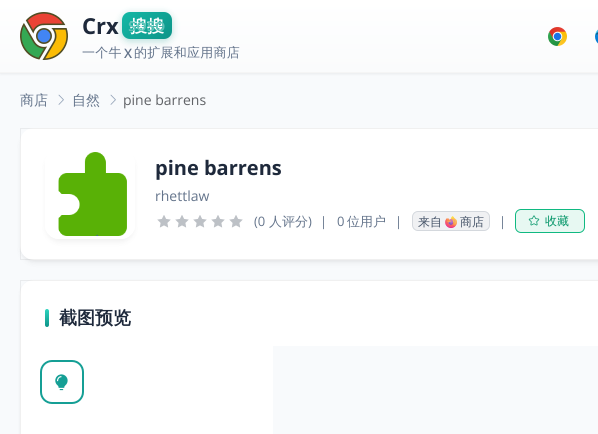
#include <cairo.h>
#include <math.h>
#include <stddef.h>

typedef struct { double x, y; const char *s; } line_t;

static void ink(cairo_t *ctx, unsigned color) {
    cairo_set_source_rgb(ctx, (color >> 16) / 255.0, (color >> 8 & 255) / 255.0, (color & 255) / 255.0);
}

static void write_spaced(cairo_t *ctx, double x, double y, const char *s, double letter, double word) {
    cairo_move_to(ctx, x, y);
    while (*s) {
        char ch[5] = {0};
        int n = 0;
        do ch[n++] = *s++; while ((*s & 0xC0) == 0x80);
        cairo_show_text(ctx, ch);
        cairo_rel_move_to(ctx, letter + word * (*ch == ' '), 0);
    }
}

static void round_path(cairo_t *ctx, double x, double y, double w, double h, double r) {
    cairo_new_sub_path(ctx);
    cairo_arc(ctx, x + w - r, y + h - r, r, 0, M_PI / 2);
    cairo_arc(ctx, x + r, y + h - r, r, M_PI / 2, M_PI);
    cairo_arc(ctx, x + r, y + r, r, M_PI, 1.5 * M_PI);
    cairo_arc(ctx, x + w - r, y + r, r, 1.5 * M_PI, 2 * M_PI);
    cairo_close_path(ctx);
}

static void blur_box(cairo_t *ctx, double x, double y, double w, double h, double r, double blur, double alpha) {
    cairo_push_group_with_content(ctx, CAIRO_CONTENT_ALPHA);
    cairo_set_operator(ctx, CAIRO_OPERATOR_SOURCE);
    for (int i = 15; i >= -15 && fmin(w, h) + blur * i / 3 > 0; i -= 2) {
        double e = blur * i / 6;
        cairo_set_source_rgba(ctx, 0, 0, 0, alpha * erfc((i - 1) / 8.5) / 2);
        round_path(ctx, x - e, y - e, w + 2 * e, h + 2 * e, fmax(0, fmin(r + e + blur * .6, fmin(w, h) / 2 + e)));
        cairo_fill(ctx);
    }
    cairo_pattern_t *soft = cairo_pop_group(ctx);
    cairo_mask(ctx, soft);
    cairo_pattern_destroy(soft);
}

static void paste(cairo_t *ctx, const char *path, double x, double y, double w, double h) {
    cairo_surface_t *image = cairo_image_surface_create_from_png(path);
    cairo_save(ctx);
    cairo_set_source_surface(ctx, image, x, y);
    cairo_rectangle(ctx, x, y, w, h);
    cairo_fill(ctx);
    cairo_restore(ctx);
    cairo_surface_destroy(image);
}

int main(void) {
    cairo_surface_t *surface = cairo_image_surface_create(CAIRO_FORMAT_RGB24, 598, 434);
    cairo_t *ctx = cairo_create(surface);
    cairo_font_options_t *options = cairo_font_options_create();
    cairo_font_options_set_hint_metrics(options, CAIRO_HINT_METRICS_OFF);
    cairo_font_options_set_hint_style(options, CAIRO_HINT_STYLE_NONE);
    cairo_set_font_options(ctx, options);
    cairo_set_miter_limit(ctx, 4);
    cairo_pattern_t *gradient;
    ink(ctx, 0xF8FAFC);
    cairo_paint(ctx);
    ink(ctx, 0x000000);
    blur_box(ctx, 0, 1, 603, 73, 0, 1.5, 0.06);
    gradient = cairo_pattern_create_linear(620, 0, 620, 72);
    cairo_pattern_add_color_stop_rgba(gradient, 0, 1, 1, 1, 1);
    cairo_pattern_add_color_stop_rgba(gradient, 1, 0.98, 0.984, 0.988, 1);
    cairo_set_source(ctx, gradient);
    cairo_pattern_destroy(gradient);
    cairo_rectangle(ctx, 0, 0, 598, 72);
    cairo_fill(ctx);
    ink(ctx, 0xF5F5F5);
    cairo_rectangle(ctx, 0, 72, 598, 1);
    cairo_fill(ctx);
    paste(ctx, "media/1.png", 20, 12, 48, 48);
    cairo_select_font_face(ctx, "Open Sans", CAIRO_FONT_SLANT_NORMAL, CAIRO_FONT_WEIGHT_BOLD);
    cairo_set_font_size(ctx, 22);
    ink(ctx, 0x1E293B);
    cairo_move_to(ctx, 82, 34);
    cairo_show_text(ctx, "Crx");
    ink(ctx, 0x0D9488);
    blur_box(ctx, 122, 14, 50, 27, 8, 4, 0.3);
    gradient = cairo_pattern_create_linear(128, 6.3, 166, 45);
    cairo_pattern_add_color_stop_rgba(gradient, 0, 0.078, 0.722, 0.651, 1);
    cairo_pattern_add_color_stop_rgba(gradient, 1, 0.051, 0.58, 0.533, 1);
    cairo_set_source(ctx, gradient);
    cairo_pattern_destroy(gradient);
    round_path(ctx, 122, 12, 50, 27, 8);
    cairo_fill(ctx);
    cairo_select_font_face(ctx, "WenQuanYi Zen Hei", CAIRO_FONT_SLANT_NORMAL, CAIRO_FONT_WEIGHT_BOLD);
    cairo_set_font_size(ctx, 17);
    ink(ctx, 0xFFFFFF);
    cairo_move_to(ctx, 130, 32);
    cairo_show_text(ctx, "搜搜");
    cairo_select_font_face(ctx, "Open Sans SemiBold", CAIRO_FONT_SLANT_NORMAL, CAIRO_FONT_WEIGHT_NORMAL);
    ink(ctx, 0x5EC3B8);
    cairo_move_to(ctx, 128, 31);
    cairo_show_text(ctx, "soso");
    cairo_select_font_face(ctx, "WenQuanYi Zen Hei Medium", CAIRO_FONT_SLANT_NORMAL, CAIRO_FONT_WEIGHT_NORMAL);
    cairo_set_font_size(ctx, 13);
    ink(ctx, 0x64748B);
    write_spaced(ctx, 82, 57, "一个牛", 0.25, 0);
    cairo_select_font_face(ctx, "Open Sans SemiBold", CAIRO_FONT_SLANT_NORMAL, CAIRO_FONT_WEIGHT_NORMAL);
    write_spaced(ctx, 124, 58, "X", 0.25, 0);
    cairo_select_font_face(ctx, "WenQuanYi Zen Hei Medium", CAIRO_FONT_SLANT_NORMAL, CAIRO_FONT_WEIGHT_NORMAL);
    write_spaced(ctx, 134, 57, "的扩展和应用商店", 0.25, 0);
    paste(ctx, "media/2.png", 548, 27, 19, 19);
    paste(ctx, "media/3.png", 595, 29, 3, 15);
    cairo_set_font_size(ctx, 14);
    cairo_move_to(ctx, 20, 105);
    cairo_show_text(ctx, "商店");
    paste(ctx, "media/4.png", 58, 94, 6, 11);
    cairo_move_to(ctx, 72, 105);
    cairo_show_text(ctx, "自然");
    paste(ctx, "media/4.png", 110, 94, 6, 11);
    cairo_select_font_face(ctx, "Open Sans", CAIRO_FONT_SLANT_NORMAL, CAIRO_FONT_WEIGHT_NORMAL);
    ink(ctx, 0x606266);
    cairo_move_to(ctx, 123, 105);
    cairo_show_text(ctx, "pine barrens");
    ink(ctx, 0x000000);
    blur_box(ctx, 21, 131, 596, 130, 13, 2, 0.04);
    blur_box(ctx, 21, 133, 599, 130, 13, 3, 0.06);
    ink(ctx, 0xFFFFFF);
    round_path(ctx, 20, 128, 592, 132, 14);
    cairo_fill(ctx);
    cairo_rectangle(ctx, 20.5, 128.5, 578, 131);
    cairo_set_source_rgba(ctx, 0, 0, 0, 0.06);
    cairo_set_line_width(ctx, 1);
    cairo_stroke(ctx);
    cairo_save(ctx);
    cairo_set_fill_rule(ctx, CAIRO_FILL_RULE_EVEN_ODD);
    cairo_new_path(ctx);
    cairo_move_to(ctx, 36, 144);
    cairo_line_to(ctx, 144, 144);
    cairo_line_to(ctx, 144, 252);
    cairo_line_to(ctx, 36, 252);
    cairo_close_path(ctx);
    cairo_move_to(ctx, 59, 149);
    cairo_line_to(ctx, 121, 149);
    cairo_curve_to(ctx, 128.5, 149, 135, 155.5, 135, 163);
    cairo_line_to(ctx, 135, 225);
    cairo_curve_to(ctx, 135, 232.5, 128.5, 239, 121, 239);
    cairo_line_to(ctx, 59, 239);
    cairo_curve_to(ctx, 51.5, 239, 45, 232.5, 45, 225);
    cairo_line_to(ctx, 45, 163);
    cairo_curve_to(ctx, 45, 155.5, 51.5, 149, 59, 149);
    cairo_close_path(ctx);
    cairo_clip(ctx);
    ink(ctx, 0x000000);
    blur_box(ctx, 46, 154, 88, 88, 13, 3, 0.06);
    cairo_restore(ctx);
    round_path(ctx, 46.5, 150.5, 87, 87, 12.5);
    ink(ctx, 0xFFFFFF);
    cairo_set_line_width(ctx, 3);
    cairo_stroke(ctx);
    paste(ctx, "media/5.png", 58, 152, 69, 84);
    cairo_select_font_face(ctx, "Open Sans", CAIRO_FONT_SLANT_NORMAL, CAIRO_FONT_WEIGHT_BOLD);
    cairo_set_font_size(ctx, 20);
    ink(ctx, 0x1E293B);
    cairo_move_to(ctx, 155, 175);
    cairo_show_text(ctx, "pine barrens");
    cairo_select_font_face(ctx, "Open Sans", CAIRO_FONT_SLANT_NORMAL, CAIRO_FONT_WEIGHT_NORMAL);
    cairo_set_font_size(ctx, 14);
    ink(ctx, 0x64748B);
    cairo_move_to(ctx, 155, 201);
    cairo_show_text(ctx, "rhettlaw");
    paste(ctx, "media/6.png", 157, 215, 14, 13);
    paste(ctx, "media/6.png", 175, 215, 14, 13);
    paste(ctx, "media/6.png", 193, 215, 14, 13);
    paste(ctx, "media/6.png", 211, 215, 14, 13);
    paste(ctx, "media/6.png", 229, 215, 14, 13);
    cairo_set_font_size(ctx, 13);
    cairo_move_to(ctx, 254, 226);
    cairo_show_text(ctx, "(0");
    cairo_select_font_face(ctx, "WenQuanYi Zen Hei Medium", CAIRO_FONT_SLANT_NORMAL, CAIRO_FONT_WEIGHT_NORMAL);
    cairo_move_to(ctx, 269, 226);
    cairo_show_text(ctx, "人评分");
    cairo_select_font_face(ctx, "Open Sans", CAIRO_FONT_SLANT_NORMAL, CAIRO_FONT_WEIGHT_NORMAL);
    {
        static const line_t items[] = {
            {308, 226, ")"},
            {320, 226, "|"},
            {337, 226, "0"},
        };
        for (size_t i = 0; i < sizeof items / sizeof *items; i++) {
            cairo_move_to(ctx, items[i].x, items[i].y);
            cairo_show_text(ctx, items[i].s);
        }
    }
    cairo_select_font_face(ctx, "WenQuanYi Zen Hei Medium", CAIRO_FONT_SLANT_NORMAL, CAIRO_FONT_WEIGHT_NORMAL);
    cairo_move_to(ctx, 347, 226);
    cairo_show_text(ctx, "位用户");
    cairo_select_font_face(ctx, "Open Sans", CAIRO_FONT_SLANT_NORMAL, CAIRO_FONT_WEIGHT_NORMAL);
    cairo_move_to(ctx, 395, 226);
    cairo_show_text(ctx, "|");
    ink(ctx, 0xF0F1F3);
    round_path(ctx, 412, 211, 78, 20, 6);
    cairo_fill(ctx);
    round_path(ctx, 412.5, 211.5, 77, 19, 5.5);
    cairo_set_source_rgba(ctx, 0.392, 0.455, 0.545, 0.2);
    cairo_set_line_width(ctx, 1);
    cairo_stroke(ctx);
    cairo_select_font_face(ctx, "WenQuanYi Zen Hei Medium", CAIRO_FONT_SLANT_NORMAL, CAIRO_FONT_WEIGHT_NORMAL);
    cairo_set_font_size(ctx, 12);
    ink(ctx, 0x475569);
    cairo_move_to(ctx, 418, 226);
    cairo_show_text(ctx, "来自");
    paste(ctx, "media/7.png", 445, 216, 12, 12);
    cairo_move_to(ctx, 460, 226);
    cairo_show_text(ctx, "商店");
    cairo_select_font_face(ctx, "Open Sans", CAIRO_FONT_SLANT_NORMAL, CAIRO_FONT_WEIGHT_NORMAL);
    cairo_set_font_size(ctx, 13);
    ink(ctx, 0x64748B);
    cairo_move_to(ctx, 499, 226);
    cairo_show_text(ctx, "|");
    ink(ctx, 0xE7F8F2);
    round_path(ctx, 515.5, 209.5, 69, 23, 5.5);
    cairo_fill_preserve(ctx);
    ink(ctx, 0x10B981);
    cairo_stroke(ctx);
    paste(ctx, "media/8.png", 528, 215, 12, 11);
    cairo_select_font_face(ctx, "WenQuanYi Zen Hei Medium", CAIRO_FONT_SLANT_NORMAL, CAIRO_FONT_WEIGHT_NORMAL);
    cairo_set_font_size(ctx, 12);
    ink(ctx, 0x059669);
    cairo_move_to(ctx, 545, 225);
    cairo_show_text(ctx, "收藏");
    ink(ctx, 0x000000);
    blur_box(ctx, 20, 281, 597, 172, 14, 1.5, 0.06);
    ink(ctx, 0xFFFFFF);
    round_path(ctx, 20, 280, 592, 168, 14);
    cairo_fill(ctx);
    cairo_rectangle(ctx, 20.5, 280.5, 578, 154);
    cairo_set_source_rgba(ctx, 0, 0, 0, 0.06);
    cairo_stroke(ctx);
    gradient = cairo_pattern_create_linear(47, 309, 47, 327);
    cairo_pattern_add_color_stop_rgba(gradient, 0, 0.176, 0.831, 0.749, 1);
    cairo_pattern_add_color_stop_rgba(gradient, 1, 0.051, 0.58, 0.533, 1);
    cairo_set_source(ctx, gradient);
    cairo_pattern_destroy(gradient);
    round_path(ctx, 45, 309, 4, 18, 2);
    cairo_fill(ctx);
    cairo_select_font_face(ctx, "WenQuanYi Zen Hei", CAIRO_FONT_SLANT_NORMAL, CAIRO_FONT_WEIGHT_BOLD);
    cairo_set_font_size(ctx, 18);
    ink(ctx, 0x1E293B);
    cairo_move_to(ctx, 59, 324);
    cairo_show_text(ctx, "截图预览");
    ink(ctx, 0xF8FAFC);
    cairo_rectangle(ctx, 273, 346, 325, 88);
    cairo_fill(ctx);
    round_path(ctx, 41, 361, 42, 42, 11);
    ink(ctx, 0x159F95);
    cairo_set_line_width(ctx, 2);
    cairo_stroke(ctx);
    paste(ctx, "media/9.png", 55, 374, 13, 17);
    cairo_surface_write_to_png(surface, "image.png");
    cairo_font_options_destroy(options);
    cairo_destroy(ctx);
    cairo_surface_destroy(surface);
    return 0;
}
